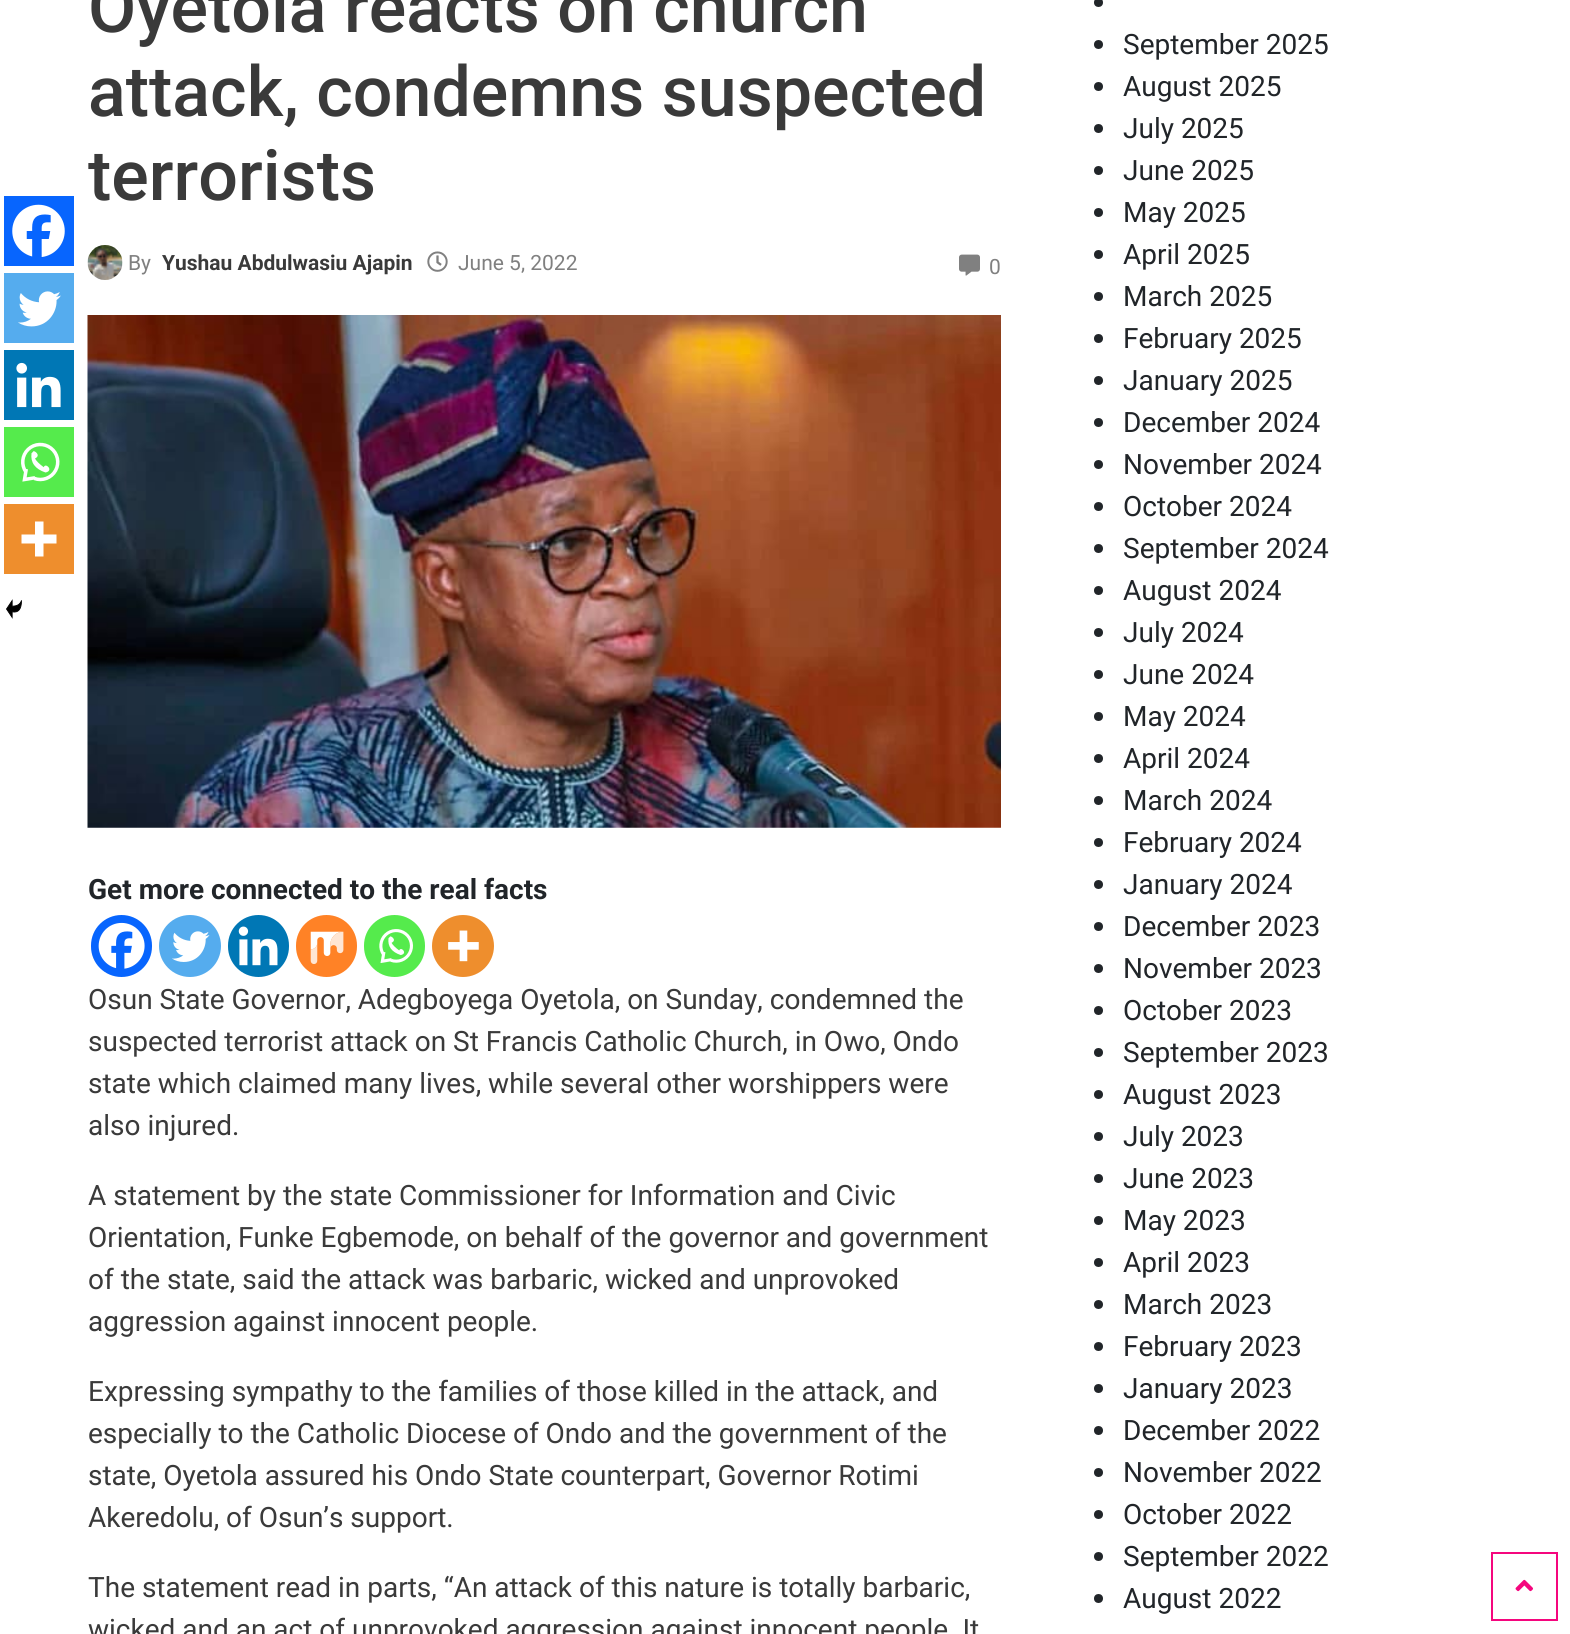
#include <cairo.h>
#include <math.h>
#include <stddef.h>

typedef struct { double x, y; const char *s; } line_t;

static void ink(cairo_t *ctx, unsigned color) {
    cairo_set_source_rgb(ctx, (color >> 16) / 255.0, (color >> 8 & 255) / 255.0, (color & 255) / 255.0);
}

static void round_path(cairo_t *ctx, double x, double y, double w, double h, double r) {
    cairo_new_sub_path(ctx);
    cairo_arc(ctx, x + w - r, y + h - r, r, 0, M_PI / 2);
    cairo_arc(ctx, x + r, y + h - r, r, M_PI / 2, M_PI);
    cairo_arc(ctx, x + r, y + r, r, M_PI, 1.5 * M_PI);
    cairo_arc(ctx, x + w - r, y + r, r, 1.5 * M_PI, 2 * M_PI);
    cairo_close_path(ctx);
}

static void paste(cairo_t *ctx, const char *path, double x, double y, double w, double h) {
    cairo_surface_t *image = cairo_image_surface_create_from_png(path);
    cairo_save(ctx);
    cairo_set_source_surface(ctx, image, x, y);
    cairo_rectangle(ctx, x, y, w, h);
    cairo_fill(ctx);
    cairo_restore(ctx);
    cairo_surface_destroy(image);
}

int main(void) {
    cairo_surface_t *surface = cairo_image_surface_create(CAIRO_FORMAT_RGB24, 1570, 1634);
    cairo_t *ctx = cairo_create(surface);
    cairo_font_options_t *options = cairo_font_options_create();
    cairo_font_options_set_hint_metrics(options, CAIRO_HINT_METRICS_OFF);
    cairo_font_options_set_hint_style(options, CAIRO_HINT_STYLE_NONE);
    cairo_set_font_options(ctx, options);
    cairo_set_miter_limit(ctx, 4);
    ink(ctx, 0xFFFFFF);
    cairo_paint(ctx);
    cairo_select_font_face(ctx, "Roboto Medium", CAIRO_FONT_SLANT_NORMAL, CAIRO_FONT_WEIGHT_NORMAL);
    cairo_set_font_size(ctx, 70);
    ink(ctx, 0x3A3A3A);
    {
        static const line_t items[] = {
            {88, 32, "Oyetola reacts on church"},
            {88, 116, "attack, condemns suspected"},
            {88, 200, "terrorists"},
        };
        for (size_t i = 0; i < sizeof items / sizeof *items; i++) {
            cairo_move_to(ctx, items[i].x, items[i].y);
            cairo_show_text(ctx, items[i].s);
        }
    }
    paste(ctx, "media/1.png", 87, 245, 36, 35);
    cairo_select_font_face(ctx, "Roboto", CAIRO_FONT_SLANT_NORMAL, CAIRO_FONT_WEIGHT_NORMAL);
    cairo_set_font_size(ctx, 21);
    ink(ctx, 0x808080);
    cairo_move_to(ctx, 128, 270);
    cairo_show_text(ctx, "By");
    cairo_select_font_face(ctx, "Roboto", CAIRO_FONT_SLANT_NORMAL, CAIRO_FONT_WEIGHT_BOLD);
    ink(ctx, 0x3A3A3A);
    cairo_move_to(ctx, 162, 270);
    cairo_show_text(ctx, "Yushau Abdulwasiu Ajapin");
    paste(ctx, "media/2.png", 427, 251, 21, 21);
    cairo_select_font_face(ctx, "Roboto", CAIRO_FONT_SLANT_NORMAL, CAIRO_FONT_WEIGHT_NORMAL);
    ink(ctx, 0x808080);
    cairo_move_to(ctx, 458, 270);
    cairo_show_text(ctx, "June 5, 2022");
    paste(ctx, "media/3.png", 959, 254, 21, 22);
    cairo_move_to(ctx, 989, 274);
    cairo_show_text(ctx, "0");
    paste(ctx, "media/4.png", 87, 315, 914, 513);
    ink(ctx, 0x0765FE);
    cairo_rectangle(ctx, 4, 196, 70, 70);
    cairo_fill(ctx);
    paste(ctx, "media/5.png", 12, 204, 53, 53);
    ink(ctx, 0x55ACEE);
    cairo_rectangle(ctx, 4, 273, 70, 70);
    cairo_fill(ctx);
    paste(ctx, "media/6.png", 18, 291, 43, 36);
    ink(ctx, 0x0077B5);
    cairo_rectangle(ctx, 4, 350, 70, 70);
    cairo_fill(ctx);
    paste(ctx, "media/7.png", 16, 362, 45, 46);
    ink(ctx, 0x55EB4C);
    cairo_rectangle(ctx, 4, 427, 70, 70);
    cairo_fill(ctx);
    paste(ctx, "media/8.png", 21, 442, 39, 40);
    ink(ctx, 0xEE8E2D);
    cairo_rectangle(ctx, 4, 504, 70, 70);
    cairo_fill(ctx);
    ink(ctx, 0xFFFFFF);
    cairo_set_fill_rule(ctx, CAIRO_FILL_RULE_EVEN_ODD);
    cairo_new_path(ctx);
    cairo_move_to(ctx, 43.5, 534.5);
    cairo_line_to(ctx, 43.5, 521.5);
    cairo_line_to(ctx, 35, 521.5);
    cairo_line_to(ctx, 35, 534.5);
    cairo_line_to(ctx, 21.5, 534.5);
    cairo_line_to(ctx, 21.5, 543.5);
    cairo_line_to(ctx, 35, 543.5);
    cairo_line_to(ctx, 35, 556.5);
    cairo_line_to(ctx, 43.5, 556.5);
    cairo_line_to(ctx, 43.5, 543.5);
    cairo_line_to(ctx, 56.5, 543.5);
    cairo_line_to(ctx, 56.5, 534.5);
    cairo_close_path(ctx);
    cairo_fill(ctx);
    paste(ctx, "media/9.png", 6, 599, 16, 20);
    cairo_select_font_face(ctx, "Roboto", CAIRO_FONT_SLANT_NORMAL, CAIRO_FONT_WEIGHT_BOLD);
    cairo_set_font_size(ctx, 28);
    ink(ctx, 0x212529);
    cairo_move_to(ctx, 88, 899);
    cairo_show_text(ctx, "Get more connected to the real facts");
    ink(ctx, 0x0765FE);
    round_path(ctx, 91, 915, 61, 62, 30.5);
    cairo_fill(ctx);
    paste(ctx, "media/10.png", 98, 922, 47, 47);
    ink(ctx, 0x55ACEE);
    cairo_arc(ctx, 190, 946, 31, 0, 2 * M_PI);
    cairo_fill(ctx);
    paste(ctx, "media/11.png", 172, 931, 38, 31);
    ink(ctx, 0x0077B5);
    round_path(ctx, 228, 915, 61, 62, 30.5);
    cairo_fill(ctx);
    paste(ctx, "media/12.png", 238, 926, 40, 40);
    ink(ctx, 0xFF8226);
    round_path(ctx, 296, 915, 61, 62, 30.5);
    cairo_fill(ctx);
    paste(ctx, "media/13.png", 310, 931, 34, 33);
    ink(ctx, 0x55EB4C);
    round_path(ctx, 364, 915, 61, 62, 30.5);
    cairo_fill(ctx);
    paste(ctx, "media/14.png", 379, 929, 34, 34);
    ink(ctx, 0xEE8E2D);
    cairo_arc(ctx, 463, 946, 31, 0, 2 * M_PI);
    cairo_fill(ctx);
    paste(ctx, "media/15.png", 448, 930, 31, 32);
    cairo_select_font_face(ctx, "Roboto", CAIRO_FONT_SLANT_NORMAL, CAIRO_FONT_WEIGHT_NORMAL);
    ink(ctx, 0x3A3A3A);
    {
        static const line_t items[] = {
            {88, 1009, "Osun State Governor, Adegboyega Oyetola, on Sunday, condemned the"},
            {88, 1051, "suspected terrorist attack on St Francis Catholic Church, in Owo, Ondo"},
            {88, 1093, "state which claimed many lives, while several other worshippers were"},
            {88, 1135, "also injured."},
            {88, 1205, "A statement by the state Commissioner for Information and Civic"},
            {88, 1247, "Orientation, Funke Egbemode, on behalf of the governor and government"},
            {88, 1289, "of the state, said the attack was barbaric, wicked and unprovoked"},
            {88, 1331, "aggression against innocent people."},
            {88, 1401, "Expressing sympathy to the families of those killed in the attack, and"},
            {88, 1443, "especially to the Catholic Diocese of Ondo and the government of the"},
            {88, 1485, "state, Oyetola assured his Ondo State counterpart, Governor Rotimi"},
            {88, 1527, "Akeredolu, of Osun’s support."},
            {88, 1597, "The statement read in parts, “An attack of this nature is totally barbaric,"},
            {88, 1639, "wicked and an act of unprovoked aggression against innocent people. It"},
        };
        for (size_t i = 0; i < sizeof items / sizeof *items; i++) {
            cairo_move_to(ctx, items[i].x, items[i].y);
            cairo_show_text(ctx, items[i].s);
        }
    }
    ink(ctx, 0x212529);
    cairo_new_path(ctx);
    cairo_arc(ctx, 1098.5, 2.5, 4.5, 0, 2 * M_PI);
    cairo_fill(ctx);
    cairo_arc(ctx, 1098.5, 44.5, 4.5, 0, 2 * M_PI);
    cairo_fill(ctx);
    cairo_move_to(ctx, 1123, 54);
    cairo_show_text(ctx, "September 2025");
    cairo_new_path(ctx);
    cairo_arc(ctx, 1098.5, 86.5, 4.5, 0, 2 * M_PI);
    cairo_fill(ctx);
    cairo_move_to(ctx, 1123, 96);
    cairo_show_text(ctx, "August 2025");
    cairo_new_path(ctx);
    cairo_arc(ctx, 1098.5, 128.5, 4.5, 0, 2 * M_PI);
    cairo_fill(ctx);
    cairo_move_to(ctx, 1123, 138);
    cairo_show_text(ctx, "July 2025");
    cairo_new_path(ctx);
    cairo_arc(ctx, 1098.5, 170.5, 4.5, 0, 2 * M_PI);
    cairo_fill(ctx);
    cairo_move_to(ctx, 1123, 180);
    cairo_show_text(ctx, "June 2025");
    cairo_new_path(ctx);
    cairo_arc(ctx, 1098.5, 212.5, 4.5, 0, 2 * M_PI);
    cairo_fill(ctx);
    cairo_move_to(ctx, 1123, 222);
    cairo_show_text(ctx, "May 2025");
    cairo_new_path(ctx);
    cairo_arc(ctx, 1098.5, 254.5, 4.5, 0, 2 * M_PI);
    cairo_fill(ctx);
    cairo_move_to(ctx, 1123, 264);
    cairo_show_text(ctx, "April 2025");
    cairo_new_path(ctx);
    cairo_arc(ctx, 1098.5, 296.5, 4.5, 0, 2 * M_PI);
    cairo_fill(ctx);
    cairo_move_to(ctx, 1123, 306);
    cairo_show_text(ctx, "March 2025");
    cairo_new_path(ctx);
    cairo_arc(ctx, 1098.5, 338.5, 4.5, 0, 2 * M_PI);
    cairo_fill(ctx);
    cairo_move_to(ctx, 1123, 348);
    cairo_show_text(ctx, "February 2025");
    cairo_new_path(ctx);
    cairo_arc(ctx, 1098.5, 380.5, 4.5, 0, 2 * M_PI);
    cairo_fill(ctx);
    cairo_move_to(ctx, 1123, 390);
    cairo_show_text(ctx, "January 2025");
    cairo_new_path(ctx);
    cairo_arc(ctx, 1098.5, 422.5, 4.5, 0, 2 * M_PI);
    cairo_fill(ctx);
    cairo_move_to(ctx, 1123, 432);
    cairo_show_text(ctx, "December 2024");
    cairo_new_path(ctx);
    cairo_arc(ctx, 1098.5, 464.5, 4.5, 0, 2 * M_PI);
    cairo_fill(ctx);
    cairo_move_to(ctx, 1123, 474);
    cairo_show_text(ctx, "November 2024");
    cairo_new_path(ctx);
    cairo_arc(ctx, 1098.5, 506.5, 4.5, 0, 2 * M_PI);
    cairo_fill(ctx);
    cairo_move_to(ctx, 1123, 516);
    cairo_show_text(ctx, "October 2024");
    cairo_new_path(ctx);
    cairo_arc(ctx, 1098.5, 548.5, 4.5, 0, 2 * M_PI);
    cairo_fill(ctx);
    cairo_move_to(ctx, 1123, 558);
    cairo_show_text(ctx, "September 2024");
    cairo_new_path(ctx);
    cairo_arc(ctx, 1098.5, 590.5, 4.5, 0, 2 * M_PI);
    cairo_fill(ctx);
    cairo_move_to(ctx, 1123, 600);
    cairo_show_text(ctx, "August 2024");
    cairo_new_path(ctx);
    cairo_arc(ctx, 1098.5, 632.5, 4.5, 0, 2 * M_PI);
    cairo_fill(ctx);
    cairo_move_to(ctx, 1123, 642);
    cairo_show_text(ctx, "July 2024");
    cairo_new_path(ctx);
    cairo_arc(ctx, 1098.5, 674.5, 4.5, 0, 2 * M_PI);
    cairo_fill(ctx);
    cairo_move_to(ctx, 1123, 684);
    cairo_show_text(ctx, "June 2024");
    cairo_new_path(ctx);
    cairo_arc(ctx, 1098.5, 716.5, 4.5, 0, 2 * M_PI);
    cairo_fill(ctx);
    cairo_move_to(ctx, 1123, 726);
    cairo_show_text(ctx, "May 2024");
    cairo_new_path(ctx);
    cairo_arc(ctx, 1098.5, 758.5, 4.5, 0, 2 * M_PI);
    cairo_fill(ctx);
    cairo_move_to(ctx, 1123, 768);
    cairo_show_text(ctx, "April 2024");
    cairo_new_path(ctx);
    cairo_arc(ctx, 1098.5, 800.5, 4.5, 0, 2 * M_PI);
    cairo_fill(ctx);
    cairo_move_to(ctx, 1123, 810);
    cairo_show_text(ctx, "March 2024");
    cairo_new_path(ctx);
    cairo_arc(ctx, 1098.5, 842.5, 4.5, 0, 2 * M_PI);
    cairo_fill(ctx);
    cairo_move_to(ctx, 1123, 852);
    cairo_show_text(ctx, "February 2024");
    cairo_new_path(ctx);
    cairo_arc(ctx, 1098.5, 884.5, 4.5, 0, 2 * M_PI);
    cairo_fill(ctx);
    cairo_move_to(ctx, 1123, 894);
    cairo_show_text(ctx, "January 2024");
    cairo_new_path(ctx);
    cairo_arc(ctx, 1098.5, 926.5, 4.5, 0, 2 * M_PI);
    cairo_fill(ctx);
    cairo_move_to(ctx, 1123, 936);
    cairo_show_text(ctx, "December 2023");
    cairo_new_path(ctx);
    cairo_arc(ctx, 1098.5, 968.5, 4.5, 0, 2 * M_PI);
    cairo_fill(ctx);
    cairo_move_to(ctx, 1123, 978);
    cairo_show_text(ctx, "November 2023");
    cairo_new_path(ctx);
    cairo_arc(ctx, 1098.5, 1010.5, 4.5, 0, 2 * M_PI);
    cairo_fill(ctx);
    cairo_move_to(ctx, 1123, 1020);
    cairo_show_text(ctx, "October 2023");
    cairo_new_path(ctx);
    cairo_arc(ctx, 1098.5, 1052.5, 4.5, 0, 2 * M_PI);
    cairo_fill(ctx);
    cairo_move_to(ctx, 1123, 1062);
    cairo_show_text(ctx, "September 2023");
    cairo_new_path(ctx);
    cairo_arc(ctx, 1098.5, 1094.5, 4.5, 0, 2 * M_PI);
    cairo_fill(ctx);
    cairo_move_to(ctx, 1123, 1104);
    cairo_show_text(ctx, "August 2023");
    cairo_new_path(ctx);
    cairo_arc(ctx, 1098.5, 1136.5, 4.5, 0, 2 * M_PI);
    cairo_fill(ctx);
    cairo_move_to(ctx, 1123, 1146);
    cairo_show_text(ctx, "July 2023");
    cairo_new_path(ctx);
    cairo_arc(ctx, 1098.5, 1178.5, 4.5, 0, 2 * M_PI);
    cairo_fill(ctx);
    cairo_move_to(ctx, 1123, 1188);
    cairo_show_text(ctx, "June 2023");
    cairo_new_path(ctx);
    cairo_arc(ctx, 1098.5, 1220.5, 4.5, 0, 2 * M_PI);
    cairo_fill(ctx);
    cairo_move_to(ctx, 1123, 1230);
    cairo_show_text(ctx, "May 2023");
    cairo_new_path(ctx);
    cairo_arc(ctx, 1098.5, 1262.5, 4.5, 0, 2 * M_PI);
    cairo_fill(ctx);
    cairo_move_to(ctx, 1123, 1272);
    cairo_show_text(ctx, "April 2023");
    cairo_new_path(ctx);
    cairo_arc(ctx, 1098.5, 1304.5, 4.5, 0, 2 * M_PI);
    cairo_fill(ctx);
    cairo_move_to(ctx, 1123, 1314);
    cairo_show_text(ctx, "March 2023");
    cairo_new_path(ctx);
    cairo_arc(ctx, 1098.5, 1346.5, 4.5, 0, 2 * M_PI);
    cairo_fill(ctx);
    cairo_move_to(ctx, 1123, 1356);
    cairo_show_text(ctx, "February 2023");
    cairo_new_path(ctx);
    cairo_arc(ctx, 1098.5, 1388.5, 4.5, 0, 2 * M_PI);
    cairo_fill(ctx);
    cairo_move_to(ctx, 1123, 1398);
    cairo_show_text(ctx, "January 2023");
    cairo_new_path(ctx);
    cairo_arc(ctx, 1098.5, 1430.5, 4.5, 0, 2 * M_PI);
    cairo_fill(ctx);
    cairo_move_to(ctx, 1123, 1440);
    cairo_show_text(ctx, "December 2022");
    cairo_new_path(ctx);
    cairo_arc(ctx, 1098.5, 1472.5, 4.5, 0, 2 * M_PI);
    cairo_fill(ctx);
    cairo_move_to(ctx, 1123, 1482);
    cairo_show_text(ctx, "November 2022");
    cairo_new_path(ctx);
    cairo_arc(ctx, 1098.5, 1514.5, 4.5, 0, 2 * M_PI);
    cairo_fill(ctx);
    cairo_move_to(ctx, 1123, 1524);
    cairo_show_text(ctx, "October 2022");
    cairo_new_path(ctx);
    cairo_arc(ctx, 1098.5, 1556.5, 4.5, 0, 2 * M_PI);
    cairo_fill(ctx);
    cairo_move_to(ctx, 1123, 1566);
    cairo_show_text(ctx, "September 2022");
    cairo_new_path(ctx);
    cairo_arc(ctx, 1098.5, 1598.5, 4.5, 0, 2 * M_PI);
    cairo_fill(ctx);
    cairo_move_to(ctx, 1123, 1608);
    cairo_show_text(ctx, "August 2022");
    cairo_rectangle(ctx, 1492, 1553, 65, 67);
    ink(ctx, 0xF5067E);
    cairo_stroke(ctx);
    paste(ctx, "media/16.png", 1515, 1579, 18, 13);
    cairo_surface_write_to_png(surface, "image.png");
    cairo_font_options_destroy(options);
    cairo_destroy(ctx);
    cairo_surface_destroy(surface);
    return 0;
}
